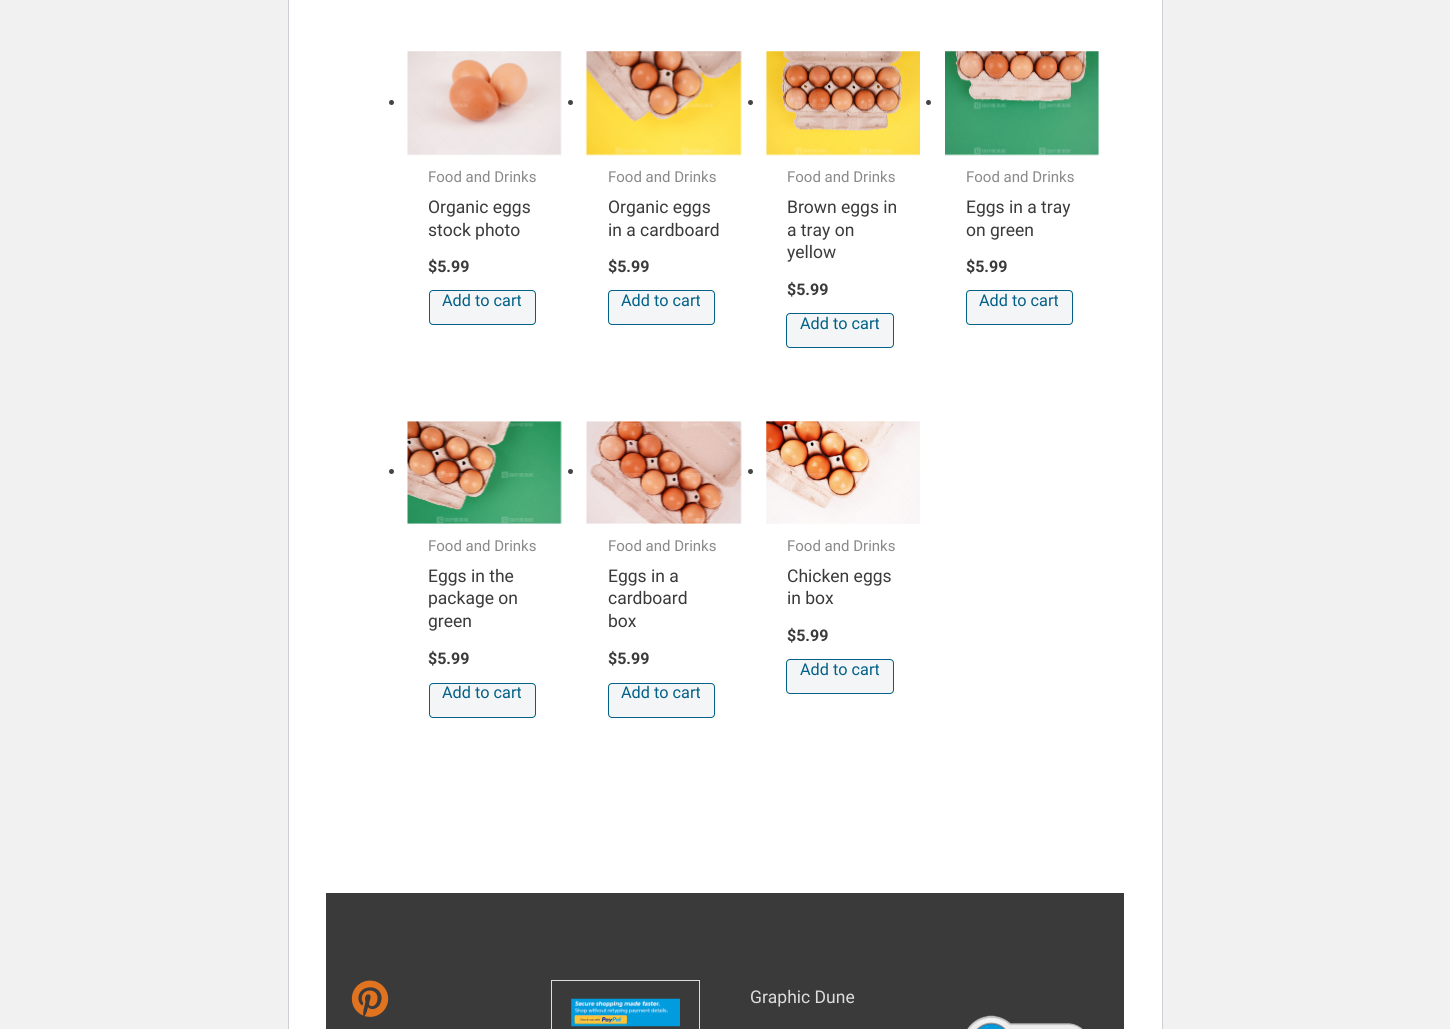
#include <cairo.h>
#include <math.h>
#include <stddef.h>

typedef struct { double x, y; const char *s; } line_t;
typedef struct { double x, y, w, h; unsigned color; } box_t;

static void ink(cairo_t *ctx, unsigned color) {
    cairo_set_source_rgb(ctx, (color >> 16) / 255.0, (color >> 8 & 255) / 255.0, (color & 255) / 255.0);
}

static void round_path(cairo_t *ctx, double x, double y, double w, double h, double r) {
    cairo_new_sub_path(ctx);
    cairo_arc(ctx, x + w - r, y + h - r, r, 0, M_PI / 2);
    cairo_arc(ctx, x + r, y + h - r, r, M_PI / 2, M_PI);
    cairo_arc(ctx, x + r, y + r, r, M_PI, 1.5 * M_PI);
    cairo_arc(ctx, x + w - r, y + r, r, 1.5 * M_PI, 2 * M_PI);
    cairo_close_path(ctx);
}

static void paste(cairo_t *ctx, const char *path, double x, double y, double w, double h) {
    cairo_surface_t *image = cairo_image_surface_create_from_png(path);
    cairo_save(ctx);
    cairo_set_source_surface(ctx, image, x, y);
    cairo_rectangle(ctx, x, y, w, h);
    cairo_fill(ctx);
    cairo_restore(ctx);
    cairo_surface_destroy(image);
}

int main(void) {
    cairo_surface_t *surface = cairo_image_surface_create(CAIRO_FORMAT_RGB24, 1450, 1029);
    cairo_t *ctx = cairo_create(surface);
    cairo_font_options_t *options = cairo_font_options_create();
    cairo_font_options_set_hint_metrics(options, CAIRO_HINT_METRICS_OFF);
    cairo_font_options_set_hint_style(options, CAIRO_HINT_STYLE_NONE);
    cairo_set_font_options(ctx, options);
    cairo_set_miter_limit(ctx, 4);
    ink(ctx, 0xF1F1F1);
    cairo_paint(ctx);
    ink(ctx, 0xFFFFFF);
    cairo_rectangle(ctx, 288.5, -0.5, 874, 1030);
    cairo_fill_preserve(ctx);
    ink(ctx, 0xCCD0D4);
    cairo_set_line_width(ctx, 1);
    cairo_stroke(ctx);
    ink(ctx, 0x444444);
    cairo_arc(ctx, 391.5, 102.5, 2.5, 0, 2 * M_PI);
    cairo_fill(ctx);
    paste(ctx, "media/1.png", 407, 51, 155, 105);
    cairo_select_font_face(ctx, "Roboto", CAIRO_FONT_SLANT_NORMAL, CAIRO_FONT_WEIGHT_NORMAL);
    cairo_set_font_size(ctx, 15);
    ink(ctx, 0x898989);
    cairo_move_to(ctx, 428, 182);
    cairo_show_text(ctx, "Food and Drinks");
    cairo_set_font_size(ctx, 17.5);
    ink(ctx, 0x3A3A3A);
    cairo_move_to(ctx, 428, 213);
    cairo_show_text(ctx, "Organic eggs");
    cairo_move_to(ctx, 428, 236);
    cairo_show_text(ctx, "stock photo");
    cairo_select_font_face(ctx, "Roboto", CAIRO_FONT_SLANT_NORMAL, CAIRO_FONT_WEIGHT_BOLD);
    cairo_set_font_size(ctx, 16);
    cairo_move_to(ctx, 428, 272);
    cairo_show_text(ctx, "$5.99");
    ink(ctx, 0xF3F5F6);
    round_path(ctx, 429.5, 290.5, 106, 34, 3.5);
    cairo_fill_preserve(ctx);
    ink(ctx, 0x016087);
    cairo_stroke(ctx);
    cairo_select_font_face(ctx, "Roboto", CAIRO_FONT_SLANT_NORMAL, CAIRO_FONT_WEIGHT_NORMAL);
    cairo_set_font_size(ctx, 16.25);
    cairo_move_to(ctx, 442, 306);
    cairo_show_text(ctx, "Add to cart");
    ink(ctx, 0x444444);
    cairo_new_path(ctx);
    cairo_arc(ctx, 570.5, 102.5, 2.5, 0, 2 * M_PI);
    cairo_fill(ctx);
    paste(ctx, "media/2.png", 585, 51, 157, 105);
    cairo_set_font_size(ctx, 15);
    ink(ctx, 0x898989);
    cairo_move_to(ctx, 608, 182);
    cairo_show_text(ctx, "Food and Drinks");
    cairo_set_font_size(ctx, 17.5);
    ink(ctx, 0x3A3A3A);
    cairo_move_to(ctx, 608, 213);
    cairo_show_text(ctx, "Organic eggs");
    cairo_move_to(ctx, 608, 236);
    cairo_show_text(ctx, "in a cardboard");
    cairo_select_font_face(ctx, "Roboto", CAIRO_FONT_SLANT_NORMAL, CAIRO_FONT_WEIGHT_BOLD);
    cairo_set_font_size(ctx, 16);
    cairo_move_to(ctx, 608, 272);
    cairo_show_text(ctx, "$5.99");
    ink(ctx, 0xF3F5F6);
    round_path(ctx, 608.5, 290.5, 106, 34, 3.5);
    cairo_fill_preserve(ctx);
    ink(ctx, 0x016087);
    cairo_stroke(ctx);
    cairo_select_font_face(ctx, "Roboto", CAIRO_FONT_SLANT_NORMAL, CAIRO_FONT_WEIGHT_NORMAL);
    cairo_set_font_size(ctx, 16.25);
    cairo_move_to(ctx, 621, 306);
    cairo_show_text(ctx, "Add to cart");
    ink(ctx, 0x444444);
    cairo_new_path(ctx);
    cairo_arc(ctx, 750.5, 102.5, 2.5, 0, 2 * M_PI);
    cairo_fill(ctx);
    paste(ctx, "media/3.png", 766, 51, 154, 105);
    cairo_set_font_size(ctx, 15);
    ink(ctx, 0x898989);
    cairo_move_to(ctx, 787, 182);
    cairo_show_text(ctx, "Food and Drinks");
    cairo_set_font_size(ctx, 17.5);
    ink(ctx, 0x3A3A3A);
    {
        static const line_t items[] = {
            {787, 213, "Brown eggs in"},
            {787, 236, "a tray on"},
            {787, 258, "yellow"},
        };
        for (size_t i = 0; i < sizeof items / sizeof *items; i++) {
            cairo_move_to(ctx, items[i].x, items[i].y);
            cairo_show_text(ctx, items[i].s);
        }
    }
    cairo_select_font_face(ctx, "Roboto", CAIRO_FONT_SLANT_NORMAL, CAIRO_FONT_WEIGHT_BOLD);
    cairo_set_font_size(ctx, 16);
    cairo_move_to(ctx, 787, 295);
    cairo_show_text(ctx, "$5.99");
    ink(ctx, 0xF3F5F6);
    round_path(ctx, 786.5, 313.5, 107, 34, 3.5);
    cairo_fill_preserve(ctx);
    ink(ctx, 0x016087);
    cairo_stroke(ctx);
    cairo_select_font_face(ctx, "Roboto", CAIRO_FONT_SLANT_NORMAL, CAIRO_FONT_WEIGHT_NORMAL);
    cairo_set_font_size(ctx, 16.25);
    cairo_move_to(ctx, 800, 329);
    cairo_show_text(ctx, "Add to cart");
    ink(ctx, 0x444444);
    cairo_new_path(ctx);
    cairo_arc(ctx, 928.5, 102.5, 2.5, 0, 2 * M_PI);
    cairo_fill(ctx);
    paste(ctx, "media/4.png", 945, 51, 154, 105);
    cairo_set_font_size(ctx, 15);
    ink(ctx, 0x898989);
    cairo_move_to(ctx, 966, 182);
    cairo_show_text(ctx, "Food and Drinks");
    cairo_set_font_size(ctx, 17.5);
    ink(ctx, 0x3A3A3A);
    cairo_move_to(ctx, 966, 213);
    cairo_show_text(ctx, "Eggs in a tray");
    cairo_move_to(ctx, 966, 236);
    cairo_show_text(ctx, "on green");
    cairo_select_font_face(ctx, "Roboto", CAIRO_FONT_SLANT_NORMAL, CAIRO_FONT_WEIGHT_BOLD);
    cairo_set_font_size(ctx, 16);
    cairo_move_to(ctx, 966, 272);
    cairo_show_text(ctx, "$5.99");
    ink(ctx, 0xF3F5F6);
    round_path(ctx, 966.5, 290.5, 106, 34, 3.5);
    cairo_fill_preserve(ctx);
    ink(ctx, 0x016087);
    cairo_stroke(ctx);
    cairo_select_font_face(ctx, "Roboto", CAIRO_FONT_SLANT_NORMAL, CAIRO_FONT_WEIGHT_NORMAL);
    cairo_set_font_size(ctx, 16.25);
    cairo_move_to(ctx, 979, 306);
    cairo_show_text(ctx, "Add to cart");
    ink(ctx, 0x444444);
    cairo_new_path(ctx);
    cairo_arc(ctx, 391.5, 471.5, 2.5, 0, 2 * M_PI);
    cairo_fill(ctx);
    paste(ctx, "media/5.png", 407, 421, 155, 103);
    cairo_set_font_size(ctx, 15);
    ink(ctx, 0x898989);
    cairo_move_to(ctx, 428, 551);
    cairo_show_text(ctx, "Food and Drinks");
    cairo_set_font_size(ctx, 17.5);
    ink(ctx, 0x3A3A3A);
    {
        static const line_t items[] = {
            {428, 582, "Eggs in the"},
            {428, 604, "package on"},
            {428, 627, "green"},
        };
        for (size_t i = 0; i < sizeof items / sizeof *items; i++) {
            cairo_move_to(ctx, items[i].x, items[i].y);
            cairo_show_text(ctx, items[i].s);
        }
    }
    cairo_select_font_face(ctx, "Roboto", CAIRO_FONT_SLANT_NORMAL, CAIRO_FONT_WEIGHT_BOLD);
    cairo_set_font_size(ctx, 16);
    cairo_move_to(ctx, 428, 664);
    cairo_show_text(ctx, "$5.99");
    ink(ctx, 0xF3F5F6);
    round_path(ctx, 429.5, 683.5, 106, 34, 3.5);
    cairo_fill_preserve(ctx);
    ink(ctx, 0x016087);
    cairo_stroke(ctx);
    cairo_select_font_face(ctx, "Roboto", CAIRO_FONT_SLANT_NORMAL, CAIRO_FONT_WEIGHT_NORMAL);
    cairo_set_font_size(ctx, 16.25);
    cairo_move_to(ctx, 442, 698);
    cairo_show_text(ctx, "Add to cart");
    ink(ctx, 0x444444);
    cairo_new_path(ctx);
    cairo_arc(ctx, 570.5, 471.5, 2.5, 0, 2 * M_PI);
    cairo_fill(ctx);
    paste(ctx, "media/6.png", 586, 421, 156, 103);
    cairo_set_font_size(ctx, 15);
    ink(ctx, 0x898989);
    cairo_move_to(ctx, 608, 551);
    cairo_show_text(ctx, "Food and Drinks");
    cairo_set_font_size(ctx, 17.5);
    ink(ctx, 0x3A3A3A);
    {
        static const line_t items[] = {
            {608, 582, "Eggs in a"},
            {608, 604, "cardboard"},
            {608, 627, "box"},
        };
        for (size_t i = 0; i < sizeof items / sizeof *items; i++) {
            cairo_move_to(ctx, items[i].x, items[i].y);
            cairo_show_text(ctx, items[i].s);
        }
    }
    cairo_select_font_face(ctx, "Roboto", CAIRO_FONT_SLANT_NORMAL, CAIRO_FONT_WEIGHT_BOLD);
    cairo_set_font_size(ctx, 16);
    cairo_move_to(ctx, 608, 664);
    cairo_show_text(ctx, "$5.99");
    ink(ctx, 0xF3F5F6);
    round_path(ctx, 608.5, 683.5, 106, 34, 3.5);
    cairo_fill_preserve(ctx);
    ink(ctx, 0x016087);
    cairo_stroke(ctx);
    cairo_select_font_face(ctx, "Roboto", CAIRO_FONT_SLANT_NORMAL, CAIRO_FONT_WEIGHT_NORMAL);
    cairo_set_font_size(ctx, 16.25);
    cairo_move_to(ctx, 621, 698);
    cairo_show_text(ctx, "Add to cart");
    ink(ctx, 0x444444);
    cairo_new_path(ctx);
    cairo_arc(ctx, 750.5, 471.5, 2.5, 0, 2 * M_PI);
    cairo_fill(ctx);
    paste(ctx, "media/7.png", 766, 421, 154, 103);
    cairo_set_font_size(ctx, 15);
    ink(ctx, 0x898989);
    cairo_move_to(ctx, 787, 551);
    cairo_show_text(ctx, "Food and Drinks");
    cairo_set_font_size(ctx, 17.5);
    ink(ctx, 0x3A3A3A);
    cairo_move_to(ctx, 787, 582);
    cairo_show_text(ctx, "Chicken eggs");
    cairo_move_to(ctx, 787, 604);
    cairo_show_text(ctx, "in box");
    cairo_select_font_face(ctx, "Roboto", CAIRO_FONT_SLANT_NORMAL, CAIRO_FONT_WEIGHT_BOLD);
    cairo_set_font_size(ctx, 16);
    cairo_move_to(ctx, 787, 641);
    cairo_show_text(ctx, "$5.99");
    ink(ctx, 0xF3F5F6);
    round_path(ctx, 786.5, 659.5, 107, 34, 3.5);
    cairo_fill_preserve(ctx);
    ink(ctx, 0x016087);
    cairo_stroke(ctx);
    cairo_select_font_face(ctx, "Roboto", CAIRO_FONT_SLANT_NORMAL, CAIRO_FONT_WEIGHT_NORMAL);
    cairo_set_font_size(ctx, 16.25);
    cairo_move_to(ctx, 800, 675);
    cairo_show_text(ctx, "Add to cart");
    ink(ctx, 0x3A3A3A);
    cairo_rectangle(ctx, 326, 893, 798, 136);
    cairo_fill(ctx);
    paste(ctx, "media/8.png", 351, 980, 38, 37);
    {
        static const box_t items[] = {
            {551, 980, 149, 1, 0xDDDDDD},
            {551, 980, 1, 49, 0xDDDDDD},
            {699, 981, 1, 48, 0xDDDDDD},
        };
        for (size_t i = 0; i < sizeof items / sizeof *items; i++) {
            ink(ctx, items[i].color);
            cairo_rectangle(ctx, items[i].x, items[i].y, items[i].w, items[i].h);
            cairo_fill(ctx);
        }
    }
    paste(ctx, "media/9.png", 571, 998, 109, 29);
    cairo_set_font_size(ctx, 17.5);
    cairo_move_to(ctx, 750, 1003);
    cairo_show_text(ctx, "Graphic Dune");
    paste(ctx, "media/10.png", 967, 1015, 116, 14);
    cairo_surface_write_to_png(surface, "image.png");
    cairo_font_options_destroy(options);
    cairo_destroy(ctx);
    cairo_surface_destroy(surface);
    return 0;
}
